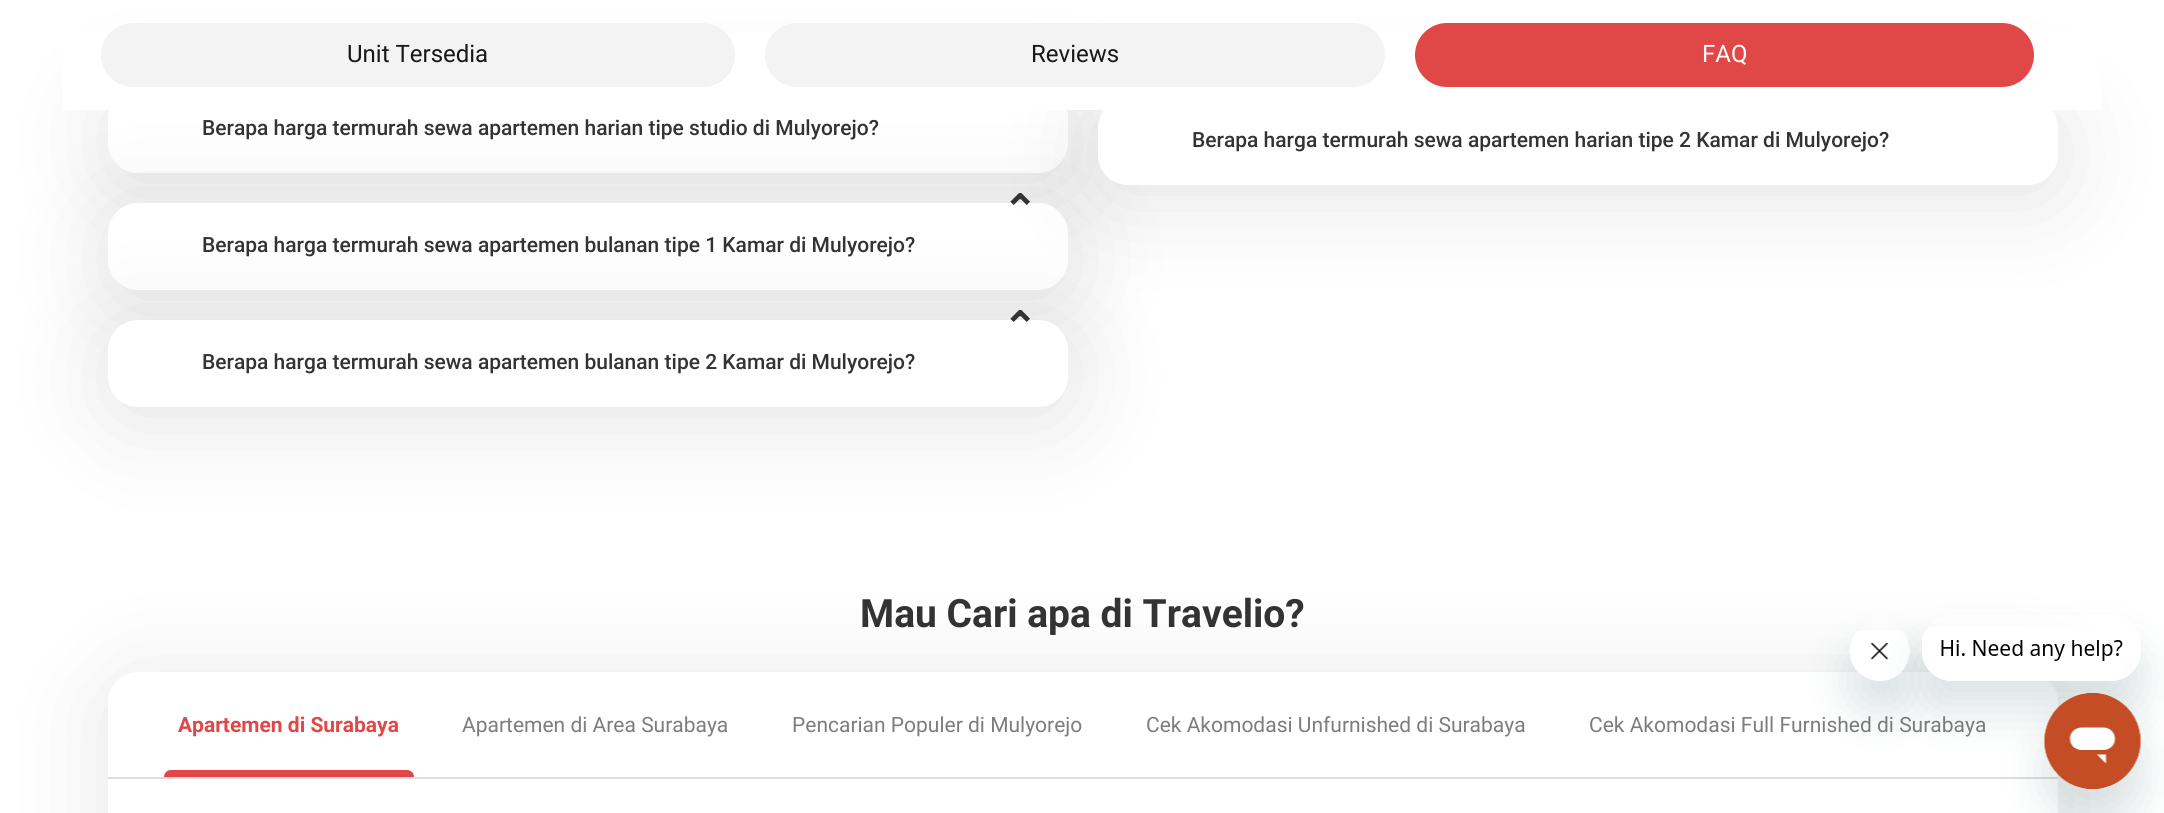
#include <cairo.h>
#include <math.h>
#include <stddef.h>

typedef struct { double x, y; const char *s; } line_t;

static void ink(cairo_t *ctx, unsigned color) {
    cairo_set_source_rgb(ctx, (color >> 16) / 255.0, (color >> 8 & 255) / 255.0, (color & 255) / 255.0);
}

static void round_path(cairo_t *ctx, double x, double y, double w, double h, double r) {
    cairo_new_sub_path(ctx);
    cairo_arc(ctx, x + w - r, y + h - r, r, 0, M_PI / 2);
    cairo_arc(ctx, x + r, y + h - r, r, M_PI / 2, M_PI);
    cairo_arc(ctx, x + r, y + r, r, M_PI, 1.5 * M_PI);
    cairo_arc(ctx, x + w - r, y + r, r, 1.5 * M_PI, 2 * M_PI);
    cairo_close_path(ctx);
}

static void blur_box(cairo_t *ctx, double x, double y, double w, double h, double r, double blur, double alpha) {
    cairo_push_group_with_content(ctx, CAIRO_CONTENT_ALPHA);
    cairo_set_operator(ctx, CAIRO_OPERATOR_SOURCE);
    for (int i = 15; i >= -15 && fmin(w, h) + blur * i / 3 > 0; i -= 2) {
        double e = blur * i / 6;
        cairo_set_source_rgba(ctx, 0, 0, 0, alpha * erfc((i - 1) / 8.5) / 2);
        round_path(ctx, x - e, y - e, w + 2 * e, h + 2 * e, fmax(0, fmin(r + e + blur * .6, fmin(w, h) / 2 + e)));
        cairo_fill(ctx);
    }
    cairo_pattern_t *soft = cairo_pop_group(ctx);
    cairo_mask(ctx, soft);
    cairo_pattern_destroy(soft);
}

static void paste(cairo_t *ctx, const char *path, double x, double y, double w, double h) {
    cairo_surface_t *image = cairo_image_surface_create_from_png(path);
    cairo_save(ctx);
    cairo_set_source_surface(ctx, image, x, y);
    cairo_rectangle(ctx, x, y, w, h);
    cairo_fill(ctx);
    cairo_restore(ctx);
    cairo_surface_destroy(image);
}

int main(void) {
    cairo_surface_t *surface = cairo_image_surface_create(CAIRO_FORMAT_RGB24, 2164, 813);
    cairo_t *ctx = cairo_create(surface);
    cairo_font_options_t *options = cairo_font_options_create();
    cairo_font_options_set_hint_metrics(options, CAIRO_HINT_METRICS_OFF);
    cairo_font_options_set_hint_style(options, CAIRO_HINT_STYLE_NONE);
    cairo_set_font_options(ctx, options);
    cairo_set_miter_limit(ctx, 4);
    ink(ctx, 0xFFFFFF);
    cairo_paint(ctx);
    ink(ctx, 0x000000);
    blur_box(ctx, 104, 92, 972, 100, 36, 47, 0.1);
    ink(ctx, 0xFFFFFF);
    round_path(ctx, 108, 86, 960, 87, 30);
    cairo_fill(ctx);
    ink(ctx, 0x000000);
    blur_box(ctx, 104, 209, 972, 100, 36, 47, 0.1);
    ink(ctx, 0xFFFFFF);
    round_path(ctx, 108, 203, 960, 87, 30);
    cairo_fill(ctx);
    ink(ctx, 0x000000);
    blur_box(ctx, 104, 326, 972, 100, 36, 47, 0.1);
    ink(ctx, 0xFFFFFF);
    round_path(ctx, 108, 320, 960, 87, 30);
    cairo_fill(ctx);
    ink(ctx, 0x000000);
    blur_box(ctx, 1094, 104, 972, 100, 36, 47, 0.1);
    ink(ctx, 0xFFFFFF);
    round_path(ctx, 1098, 98, 960, 87, 30);
    cairo_fill(ctx);
    cairo_rectangle(ctx, 63, 32, 2039, 78);
    cairo_fill(ctx);
    ink(ctx, 0xF3F3F3);
    round_path(ctx, 101, 23, 634, 64, 32);
    cairo_fill(ctx);
    cairo_select_font_face(ctx, "Roboto", CAIRO_FONT_SLANT_NORMAL, CAIRO_FONT_WEIGHT_NORMAL);
    cairo_set_font_size(ctx, 24);
    ink(ctx, 0x181818);
    cairo_move_to(ctx, 347, 62);
    cairo_show_text(ctx, "Unit Tersedia");
    ink(ctx, 0xF3F3F3);
    round_path(ctx, 765, 23, 620, 64, 32);
    cairo_fill(ctx);
    ink(ctx, 0x181818);
    cairo_move_to(ctx, 1031, 62);
    cairo_show_text(ctx, "Reviews");
    ink(ctx, 0xE04848);
    round_path(ctx, 1415, 23, 619, 64, 32);
    cairo_fill(ctx);
    ink(ctx, 0xFFFFFF);
    cairo_move_to(ctx, 1702, 62);
    cairo_show_text(ctx, "FAQ");
    cairo_select_font_face(ctx, "Roboto Medium", CAIRO_FONT_SLANT_NORMAL, CAIRO_FONT_WEIGHT_NORMAL);
    cairo_set_font_size(ctx, 21);
    ink(ctx, 0x333333);
    cairo_move_to(ctx, 202, 135);
    cairo_show_text(ctx, "Berapa harga termurah sewa apartemen harian tipe studio di Mulyorejo?");
    cairo_select_font_face(ctx, "DejaVu Sans", CAIRO_FONT_SLANT_NORMAL, CAIRO_FONT_WEIGHT_BOLD);
    cairo_set_font_size(ctx, 42);
    cairo_move_to(ctx, 1002, 225);
    cairo_show_text(ctx, "⌃");
    cairo_select_font_face(ctx, "Roboto Medium", CAIRO_FONT_SLANT_NORMAL, CAIRO_FONT_WEIGHT_NORMAL);
    cairo_set_font_size(ctx, 21);
    cairo_move_to(ctx, 202, 252);
    cairo_show_text(ctx, "Berapa harga termurah sewa apartemen bulanan tipe 1 Kamar di Mulyorejo?");
    cairo_select_font_face(ctx, "DejaVu Sans", CAIRO_FONT_SLANT_NORMAL, CAIRO_FONT_WEIGHT_BOLD);
    cairo_set_font_size(ctx, 42);
    cairo_move_to(ctx, 1002, 342);
    cairo_show_text(ctx, "⌃");
    cairo_select_font_face(ctx, "Roboto Medium", CAIRO_FONT_SLANT_NORMAL, CAIRO_FONT_WEIGHT_NORMAL);
    cairo_set_font_size(ctx, 21);
    cairo_move_to(ctx, 202, 369);
    cairo_show_text(ctx, "Berapa harga termurah sewa apartemen bulanan tipe 2 Kamar di Mulyorejo?");
    cairo_move_to(ctx, 1192, 147);
    cairo_show_text(ctx, "Berapa harga termurah sewa apartemen harian tipe 2 Kamar di Mulyorejo?");
    cairo_select_font_face(ctx, "Roboto", CAIRO_FONT_SLANT_NORMAL, CAIRO_FONT_WEIGHT_BOLD);
    cairo_set_font_size(ctx, 39);
    cairo_move_to(ctx, 860, 627);
    cairo_show_text(ctx, "Mau Cari apa di Travelio?");
    ink(ctx, 0x000000);
    blur_box(ctx, 104, 678, 1962, 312, 36, 47, 0.1);
    ink(ctx, 0xFFFFFF);
    round_path(ctx, 108, 672, 1950, 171, 30);
    cairo_fill(ctx);
    ink(ctx, 0xDDDDDD);
    cairo_rectangle(ctx, 108, 777, 1950, 2);
    cairo_fill(ctx);
    cairo_set_font_size(ctx, 21);
    ink(ctx, 0xE04848);
    cairo_move_to(ctx, 178, 732);
    cairo_show_text(ctx, "Apartemen di Surabaya");
    cairo_new_path(ctx);
    cairo_move_to(ctx, 171, 770);
    cairo_line_to(ctx, 407, 770);
    cairo_curve_to(ctx, 411, 770, 414, 773, 414, 777);
    cairo_line_to(ctx, 164, 777);
    cairo_curve_to(ctx, 164, 773, 167, 770, 171, 770);
    cairo_close_path(ctx);
    cairo_fill(ctx);
    cairo_select_font_face(ctx, "Roboto", CAIRO_FONT_SLANT_NORMAL, CAIRO_FONT_WEIGHT_NORMAL);
    ink(ctx, 0x7D7D7D);
    {
        static const line_t items[] = {
            {462, 732, "Apartemen di Area Surabaya"},
            {792, 732, "Pencarian Populer di Mulyorejo"},
            {1146, 732, "Cek Akomodasi Unfurnished di Surabaya"},
            {1589, 732, "Cek Akomodasi Full Furnished di Surabaya"},
        };
        for (size_t i = 0; i < sizeof items / sizeof *items; i++) {
            cairo_move_to(ctx, items[i].x, items[i].y);
            cairo_show_text(ctx, items[i].s);
        }
    }
    cairo_save(ctx);
    cairo_set_fill_rule(ctx, CAIRO_FILL_RULE_EVEN_ODD);
    cairo_new_path(ctx);
    cairo_move_to(ctx, 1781, 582);
    cairo_line_to(ctx, 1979, 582);
    cairo_line_to(ctx, 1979, 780);
    cairo_line_to(ctx, 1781, 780);
    cairo_close_path(ctx);
    cairo_move_to(ctx, 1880, 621);
    cairo_curve_to(ctx, 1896.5, 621, 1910, 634.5, 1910, 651);
    cairo_curve_to(ctx, 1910, 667.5, 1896.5, 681, 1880, 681);
    cairo_curve_to(ctx, 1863.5, 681, 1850, 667.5, 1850, 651);
    cairo_curve_to(ctx, 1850, 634.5, 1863.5, 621, 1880, 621);
    cairo_close_path(ctx);
    cairo_clip(ctx);
    ink(ctx, 0x17494D);
    blur_box(ctx, 1850, 651, 60, 60, 30, 22.5, 0.15);
    cairo_restore(ctx);
    paste(ctx, "media/2.png", 1849, 631, 61, 41);
    cairo_save(ctx);
    cairo_set_fill_rule(ctx, CAIRO_FILL_RULE_EVEN_ODD);
    cairo_new_path(ctx);
    cairo_move_to(ctx, 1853, 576);
    cairo_line_to(ctx, 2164, 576);
    cairo_line_to(ctx, 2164, 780);
    cairo_line_to(ctx, 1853, 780);
    cairo_close_path(ctx);
    cairo_move_to(ctx, 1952, 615);
    cairo_line_to(ctx, 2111, 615);
    cairo_curve_to(ctx, 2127.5, 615, 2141, 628.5, 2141, 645);
    cairo_line_to(ctx, 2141, 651);
    cairo_curve_to(ctx, 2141, 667.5, 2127.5, 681, 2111, 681);
    cairo_line_to(ctx, 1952, 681);
    cairo_curve_to(ctx, 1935.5, 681, 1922, 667.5, 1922, 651);
    cairo_line_to(ctx, 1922, 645);
    cairo_curve_to(ctx, 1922, 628.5, 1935.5, 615, 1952, 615);
    cairo_close_path(ctx);
    cairo_clip(ctx);
    ink(ctx, 0x17494D);
    blur_box(ctx, 1922, 645, 219, 66, 30, 22.5, 0.15);
    cairo_restore(ctx);
    paste(ctx, "media/1.png", 1922, 627, 201, 54);
    ink(ctx, 0x17494D);
    blur_box(ctx, 2045, 723, 96, 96, 48, 22.5, 0.15);
    paste(ctx, "media/3.png", 2044, 693, 97, 96);
    cairo_surface_write_to_png(surface, "image.png");
    cairo_font_options_destroy(options);
    cairo_destroy(ctx);
    cairo_surface_destroy(surface);
    return 0;
}
